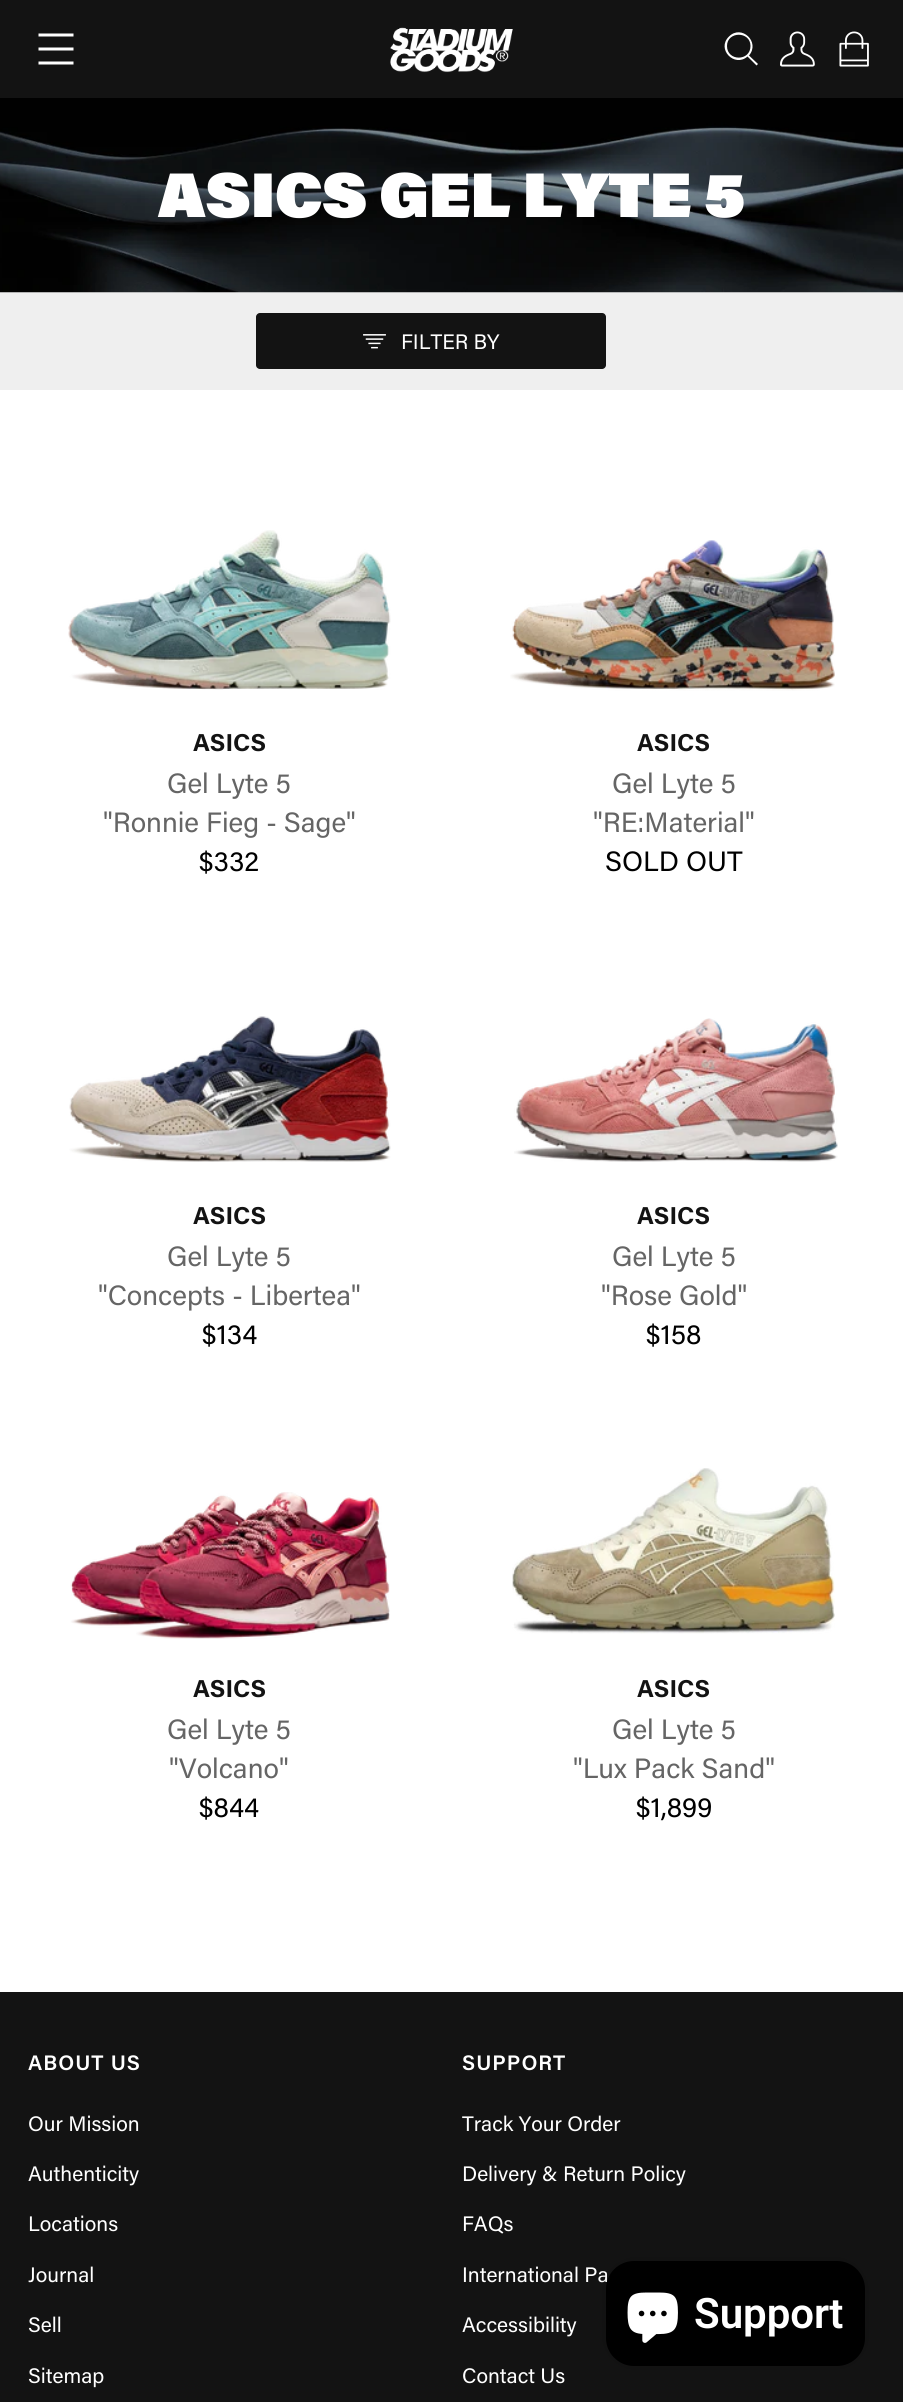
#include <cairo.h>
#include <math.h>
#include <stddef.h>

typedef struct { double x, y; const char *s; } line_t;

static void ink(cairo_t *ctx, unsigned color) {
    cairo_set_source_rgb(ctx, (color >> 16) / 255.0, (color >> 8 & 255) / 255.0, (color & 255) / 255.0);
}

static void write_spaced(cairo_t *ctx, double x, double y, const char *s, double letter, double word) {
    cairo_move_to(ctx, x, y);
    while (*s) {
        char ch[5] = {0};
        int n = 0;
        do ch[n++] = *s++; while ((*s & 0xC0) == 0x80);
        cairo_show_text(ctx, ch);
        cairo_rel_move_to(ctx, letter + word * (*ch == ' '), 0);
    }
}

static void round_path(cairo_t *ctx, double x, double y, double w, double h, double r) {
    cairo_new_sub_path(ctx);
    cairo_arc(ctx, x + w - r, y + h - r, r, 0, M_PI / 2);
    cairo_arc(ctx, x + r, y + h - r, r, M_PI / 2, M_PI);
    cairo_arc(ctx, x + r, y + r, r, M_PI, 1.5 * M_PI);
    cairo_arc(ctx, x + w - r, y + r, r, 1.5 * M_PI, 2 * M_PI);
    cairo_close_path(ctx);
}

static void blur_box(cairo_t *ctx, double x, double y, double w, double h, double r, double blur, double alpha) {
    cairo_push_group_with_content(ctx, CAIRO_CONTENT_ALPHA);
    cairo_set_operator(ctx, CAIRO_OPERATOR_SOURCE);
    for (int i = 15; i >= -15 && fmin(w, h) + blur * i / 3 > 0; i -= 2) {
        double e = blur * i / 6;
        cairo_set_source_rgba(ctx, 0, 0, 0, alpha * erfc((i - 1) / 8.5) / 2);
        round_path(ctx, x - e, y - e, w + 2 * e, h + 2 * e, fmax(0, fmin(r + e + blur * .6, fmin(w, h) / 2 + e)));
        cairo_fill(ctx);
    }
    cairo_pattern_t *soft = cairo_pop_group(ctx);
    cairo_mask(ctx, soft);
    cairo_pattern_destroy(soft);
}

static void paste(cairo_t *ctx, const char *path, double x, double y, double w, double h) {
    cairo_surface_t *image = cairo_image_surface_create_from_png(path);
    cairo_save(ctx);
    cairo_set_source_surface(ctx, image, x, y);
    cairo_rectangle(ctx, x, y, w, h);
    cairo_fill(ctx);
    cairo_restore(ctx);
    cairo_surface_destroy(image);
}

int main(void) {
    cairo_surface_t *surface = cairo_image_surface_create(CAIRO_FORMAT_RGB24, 903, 2402);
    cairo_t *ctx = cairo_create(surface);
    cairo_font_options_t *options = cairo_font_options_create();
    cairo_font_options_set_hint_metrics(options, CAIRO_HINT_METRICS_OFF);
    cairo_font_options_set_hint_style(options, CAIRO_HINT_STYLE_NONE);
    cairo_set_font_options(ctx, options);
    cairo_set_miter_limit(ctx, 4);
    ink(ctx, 0xFFFFFF);
    cairo_paint(ctx);
    ink(ctx, 0x131313);
    cairo_rectangle(ctx, 0, 0, 903, 98);
    cairo_fill(ctx);
    ink(ctx, 0xFFFFFF);
    cairo_set_fill_rule(ctx, CAIRO_FILL_RULE_EVEN_ODD);
    cairo_new_path(ctx);
    cairo_move_to(ctx, 38.5, 64.5);
    cairo_line_to(ctx, 73.5, 64.5);
    cairo_line_to(ctx, 73.5, 61.5);
    cairo_line_to(ctx, 38.5, 61.5);
    cairo_close_path(ctx);
    cairo_move_to(ctx, 38.5, 50.5);
    cairo_line_to(ctx, 73.5, 50.5);
    cairo_line_to(ctx, 73.5, 47.5);
    cairo_line_to(ctx, 38.5, 47.5);
    cairo_close_path(ctx);
    cairo_move_to(ctx, 38.5, 36.5);
    cairo_line_to(ctx, 73.5, 36.5);
    cairo_line_to(ctx, 73.5, 33.5);
    cairo_line_to(ctx, 38.5, 33.5);
    cairo_close_path(ctx);
    cairo_fill(ctx);
    paste(ctx, "media/1.png", 390, 27, 123, 46);
    cairo_new_path(ctx);
    cairo_move_to(ctx, 747.5, 56.5);
    cairo_curve_to(ctx, 734.5, 68, 716, 49, 729, 36.5);
    cairo_curve_to(ctx, 741.5, 24, 760.5, 42, 749, 55.5);
    cairo_line_to(ctx, 758, 64);
    cairo_line_to(ctx, 756.5, 65.5);
    cairo_close_path(ctx);
    cairo_move_to(ctx, 750.5, 46);
    cairo_curve_to(ctx, 750.5, 61.5, 727, 61.5, 727, 46);
    cairo_curve_to(ctx, 727, 31, 750.5, 31, 750.5, 46);
    cairo_close_path(ctx);
    cairo_fill(ctx);
    paste(ctx, "media/2.png", 780, 31, 35, 36);
    paste(ctx, "media/3.png", 839, 31, 30, 36);
    ink(ctx, 0xEFEFEF);
    cairo_rectangle(ctx, 0, 292, 903, 98);
    cairo_fill(ctx);
    paste(ctx, "media/4.png", 0, 98, 903, 195);
    cairo_select_font_face(ctx, "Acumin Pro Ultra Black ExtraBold", CAIRO_FONT_SLANT_NORMAL, CAIRO_FONT_WEIGHT_NORMAL);
    cairo_set_font_size(ctx, 63);
    ink(ctx, 0xFFFFFF);
    cairo_move_to(ctx, 158, 217);
    cairo_show_text(ctx, "ASICS GEL LYTE 5");
    ink(ctx, 0x131313);
    round_path(ctx, 256, 313, 350, 56, 4);
    cairo_fill(ctx);
    paste(ctx, "media/5.png", 363, 334, 23, 15);
    cairo_select_font_face(ctx, "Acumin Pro", CAIRO_FONT_SLANT_NORMAL, CAIRO_FONT_WEIGHT_NORMAL);
    cairo_set_font_size(ctx, 21);
    ink(ctx, 0xFFFFFF);
    cairo_move_to(ctx, 401, 349);
    cairo_show_text(ctx, "FILTER BY");
    paste(ctx, "media/6.png", 68, 530, 323, 160);
    cairo_select_font_face(ctx, "Acumin Pro", CAIRO_FONT_SLANT_NORMAL, CAIRO_FONT_WEIGHT_BOLD);
    cairo_set_font_size(ctx, 24.5);
    ink(ctx, 0x131313);
    cairo_move_to(ctx, 193, 751);
    cairo_show_text(ctx, "ASICS");
    cairo_select_font_face(ctx, "Acumin Pro", CAIRO_FONT_SLANT_NORMAL, CAIRO_FONT_WEIGHT_NORMAL);
    cairo_set_font_size(ctx, 28);
    ink(ctx, 0x656565);
    cairo_move_to(ctx, 167, 793);
    cairo_show_text(ctx, "Gel Lyte 5");
    cairo_move_to(ctx, 103, 832);
    cairo_show_text(ctx, "\"Ronnie Fieg - Sage\"");
    ink(ctx, 0x000000);
    cairo_move_to(ctx, 199, 871);
    cairo_show_text(ctx, "$332");
    paste(ctx, "media/7.png", 510, 540, 325, 151);
    cairo_select_font_face(ctx, "Acumin Pro", CAIRO_FONT_SLANT_NORMAL, CAIRO_FONT_WEIGHT_BOLD);
    cairo_set_font_size(ctx, 24.5);
    ink(ctx, 0x131313);
    cairo_move_to(ctx, 637, 751);
    cairo_show_text(ctx, "ASICS");
    cairo_select_font_face(ctx, "Acumin Pro", CAIRO_FONT_SLANT_NORMAL, CAIRO_FONT_WEIGHT_NORMAL);
    cairo_set_font_size(ctx, 28);
    ink(ctx, 0x656565);
    cairo_move_to(ctx, 612, 793);
    cairo_show_text(ctx, "Gel Lyte 5");
    cairo_move_to(ctx, 593, 832);
    cairo_show_text(ctx, "\"RE:Material\"");
    ink(ctx, 0x000000);
    cairo_move_to(ctx, 605, 871);
    cairo_show_text(ctx, "SOLD OUT");
    paste(ctx, "media/8.png", 69, 1016, 322, 146);
    cairo_select_font_face(ctx, "Acumin Pro", CAIRO_FONT_SLANT_NORMAL, CAIRO_FONT_WEIGHT_BOLD);
    cairo_set_font_size(ctx, 24.5);
    ink(ctx, 0x131313);
    cairo_move_to(ctx, 193, 1224);
    cairo_show_text(ctx, "ASICS");
    cairo_select_font_face(ctx, "Acumin Pro", CAIRO_FONT_SLANT_NORMAL, CAIRO_FONT_WEIGHT_NORMAL);
    cairo_set_font_size(ctx, 28);
    ink(ctx, 0x656565);
    cairo_move_to(ctx, 167, 1266);
    cairo_show_text(ctx, "Gel Lyte 5");
    cairo_move_to(ctx, 98, 1305);
    cairo_show_text(ctx, "\"Concepts - Libertea\"");
    ink(ctx, 0x000000);
    cairo_move_to(ctx, 202, 1344);
    cairo_show_text(ctx, "$134");
    paste(ctx, "media/9.png", 514, 1018, 324, 144);
    cairo_select_font_face(ctx, "Acumin Pro", CAIRO_FONT_SLANT_NORMAL, CAIRO_FONT_WEIGHT_BOLD);
    cairo_set_font_size(ctx, 24.5);
    ink(ctx, 0x131313);
    cairo_move_to(ctx, 637, 1224);
    cairo_show_text(ctx, "ASICS");
    cairo_select_font_face(ctx, "Acumin Pro", CAIRO_FONT_SLANT_NORMAL, CAIRO_FONT_WEIGHT_NORMAL);
    cairo_set_font_size(ctx, 28);
    ink(ctx, 0x656565);
    cairo_move_to(ctx, 612, 1266);
    cairo_show_text(ctx, "Gel Lyte 5");
    cairo_move_to(ctx, 601, 1305);
    cairo_show_text(ctx, "\"Rose Gold\"");
    ink(ctx, 0x000000);
    cairo_move_to(ctx, 646, 1344);
    cairo_show_text(ctx, "$158");
    paste(ctx, "media/10.png", 70, 1492, 320, 147);
    cairo_select_font_face(ctx, "Acumin Pro", CAIRO_FONT_SLANT_NORMAL, CAIRO_FONT_WEIGHT_BOLD);
    cairo_set_font_size(ctx, 24.5);
    ink(ctx, 0x131313);
    cairo_move_to(ctx, 193, 1697);
    cairo_show_text(ctx, "ASICS");
    cairo_select_font_face(ctx, "Acumin Pro", CAIRO_FONT_SLANT_NORMAL, CAIRO_FONT_WEIGHT_NORMAL);
    cairo_set_font_size(ctx, 28);
    ink(ctx, 0x656565);
    cairo_move_to(ctx, 167, 1739);
    cairo_show_text(ctx, "Gel Lyte 5");
    cairo_move_to(ctx, 169, 1778);
    cairo_show_text(ctx, "\"Volcano\"");
    ink(ctx, 0x000000);
    cairo_move_to(ctx, 199, 1817);
    cairo_show_text(ctx, "$844");
    paste(ctx, "media/11.png", 512, 1468, 323, 166);
    cairo_select_font_face(ctx, "Acumin Pro", CAIRO_FONT_SLANT_NORMAL, CAIRO_FONT_WEIGHT_BOLD);
    cairo_set_font_size(ctx, 24.5);
    ink(ctx, 0x131313);
    cairo_move_to(ctx, 637, 1697);
    cairo_show_text(ctx, "ASICS");
    cairo_select_font_face(ctx, "Acumin Pro", CAIRO_FONT_SLANT_NORMAL, CAIRO_FONT_WEIGHT_NORMAL);
    cairo_set_font_size(ctx, 28);
    ink(ctx, 0x656565);
    cairo_move_to(ctx, 612, 1739);
    cairo_show_text(ctx, "Gel Lyte 5");
    cairo_move_to(ctx, 573, 1778);
    cairo_show_text(ctx, "\"Lux Pack Sand\"");
    ink(ctx, 0x000000);
    cairo_move_to(ctx, 636, 1817);
    cairo_show_text(ctx, "$1,899");
    ink(ctx, 0x131313);
    cairo_rectangle(ctx, 0, 1992, 903, 410);
    cairo_fill(ctx);
    cairo_select_font_face(ctx, "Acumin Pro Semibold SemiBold", CAIRO_FONT_SLANT_NORMAL, CAIRO_FONT_WEIGHT_NORMAL);
    cairo_set_font_size(ctx, 21);
    ink(ctx, 0xFFFFFF);
    write_spaced(ctx, 28, 2070, "ABOUT US", 1, 0);
    cairo_select_font_face(ctx, "Acumin Pro", CAIRO_FONT_SLANT_NORMAL, CAIRO_FONT_WEIGHT_NORMAL);
    {
        static const line_t items[] = {
            {28, 2131, "Our Mission"},
            {28, 2181, "Authenticity"},
            {28, 2231, "Locations"},
            {28, 2282, "Journal"},
            {28, 2332, "Sell"},
            {28, 2383, "Sitemap"},
        };
        for (size_t i = 0; i < sizeof items / sizeof *items; i++) {
            cairo_move_to(ctx, items[i].x, items[i].y);
            cairo_show_text(ctx, items[i].s);
        }
    }
    cairo_select_font_face(ctx, "Acumin Pro Semibold SemiBold", CAIRO_FONT_SLANT_NORMAL, CAIRO_FONT_WEIGHT_NORMAL);
    write_spaced(ctx, 462, 2070, "SUPPORT", 1, 0);
    cairo_select_font_face(ctx, "Acumin Pro", CAIRO_FONT_SLANT_NORMAL, CAIRO_FONT_WEIGHT_NORMAL);
    {
        static const line_t items[] = {
            {462, 2131, "Track Your Order"},
            {462, 2181, "Delivery & Return Policy"},
            {462, 2231, "FAQs"},
            {462, 2282, "International Pa"},
            {462, 2332, "Accessibility"},
            {462, 2383, "Contact Us"},
        };
        for (size_t i = 0; i < sizeof items / sizeof *items; i++) {
            cairo_move_to(ctx, items[i].x, items[i].y);
            cairo_show_text(ctx, items[i].s);
        }
    }
    ink(ctx, 0x000000);
    blur_box(ctx, 606, 2261, 259, 105, 28, 4.5, 0.15);
    ink(ctx, 0x000000);
    round_path(ctx, 606, 2261, 259, 105, 28);
    cairo_fill(ctx);
    paste(ctx, "media/12.png", 627, 2292, 51, 51);
    cairo_select_font_face(ctx, "Roboto SemiBold", CAIRO_FONT_SLANT_NORMAL, CAIRO_FONT_WEIGHT_NORMAL);
    cairo_set_font_size(ctx, 42);
    ink(ctx, 0xFFFFFF);
    cairo_move_to(ctx, 694, 2328);
    cairo_show_text(ctx, "Support");
    cairo_surface_write_to_png(surface, "image.png");
    cairo_font_options_destroy(options);
    cairo_destroy(ctx);
    cairo_surface_destroy(surface);
    return 0;
}
